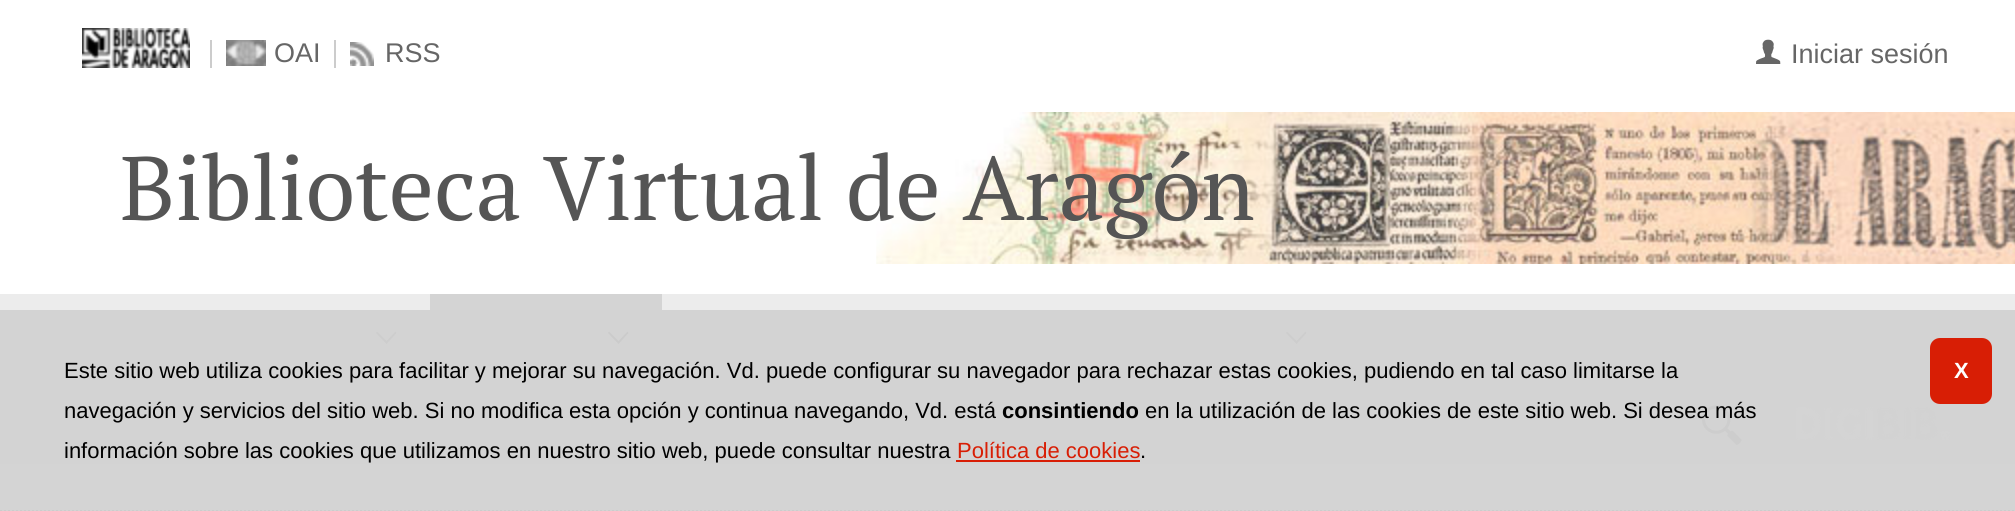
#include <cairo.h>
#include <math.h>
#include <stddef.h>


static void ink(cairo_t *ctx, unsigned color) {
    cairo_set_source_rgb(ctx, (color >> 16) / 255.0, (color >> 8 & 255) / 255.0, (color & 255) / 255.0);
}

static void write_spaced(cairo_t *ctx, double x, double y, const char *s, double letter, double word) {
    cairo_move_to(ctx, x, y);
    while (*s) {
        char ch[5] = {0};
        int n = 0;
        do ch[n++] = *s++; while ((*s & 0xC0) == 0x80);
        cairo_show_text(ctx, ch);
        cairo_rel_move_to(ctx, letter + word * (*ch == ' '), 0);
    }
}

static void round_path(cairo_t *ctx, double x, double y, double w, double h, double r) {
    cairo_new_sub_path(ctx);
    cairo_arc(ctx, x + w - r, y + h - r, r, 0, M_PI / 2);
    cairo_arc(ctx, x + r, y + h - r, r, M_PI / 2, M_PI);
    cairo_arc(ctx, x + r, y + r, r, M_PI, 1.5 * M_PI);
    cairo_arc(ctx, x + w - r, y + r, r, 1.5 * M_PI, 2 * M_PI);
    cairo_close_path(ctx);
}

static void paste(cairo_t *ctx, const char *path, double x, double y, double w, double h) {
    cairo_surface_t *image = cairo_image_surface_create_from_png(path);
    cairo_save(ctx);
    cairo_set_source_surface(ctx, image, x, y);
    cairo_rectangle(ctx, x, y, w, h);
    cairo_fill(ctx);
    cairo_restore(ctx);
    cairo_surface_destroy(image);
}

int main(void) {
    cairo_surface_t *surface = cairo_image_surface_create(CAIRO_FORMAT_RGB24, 2015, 511);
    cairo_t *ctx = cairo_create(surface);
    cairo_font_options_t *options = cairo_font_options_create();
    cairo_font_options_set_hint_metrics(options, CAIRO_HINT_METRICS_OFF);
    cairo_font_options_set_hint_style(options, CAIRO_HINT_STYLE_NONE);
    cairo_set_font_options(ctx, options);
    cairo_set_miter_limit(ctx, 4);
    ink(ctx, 0xFFFFFF);
    cairo_paint(ctx);
    ink(ctx, 0xD4D4D4);
    cairo_rectangle(ctx, 0, 464, 2015, 47);
    cairo_fill(ctx);
    paste(ctx, "media/1.png", 82, 28, 108, 40);
    ink(ctx, 0xCCCCCC);
    cairo_rectangle(ctx, 210, 40, 2, 28);
    cairo_fill(ctx);
    paste(ctx, "media/2.png", 226, 40, 40, 26);
    cairo_select_font_face(ctx, "Liberation Sans", CAIRO_FONT_SLANT_NORMAL, CAIRO_FONT_WEIGHT_NORMAL);
    cairo_set_font_size(ctx, 27);
    ink(ctx, 0x666666);
    cairo_move_to(ctx, 274, 62);
    cairo_show_text(ctx, "OAI");
    ink(ctx, 0xCCCCCC);
    cairo_rectangle(ctx, 334, 40, 2, 28);
    cairo_fill(ctx);
    paste(ctx, "media/3.png", 350, 42, 24, 24);
    ink(ctx, 0x666666);
    cairo_move_to(ctx, 385, 62);
    cairo_show_text(ctx, "RSS");
    paste(ctx, "media/4.png", 1756, 39, 25, 25);
    cairo_move_to(ctx, 1791, 63);
    cairo_show_text(ctx, "Iniciar sesión");
    paste(ctx, "media/5.png", 876, 112, 1139, 152);
    cairo_select_font_face(ctx, "PT Serif", CAIRO_FONT_SLANT_NORMAL, CAIRO_FONT_WEIGHT_NORMAL);
    cairo_set_font_size(ctx, 90);
    ink(ctx, 0x555555);
    cairo_move_to(ctx, 120, 220);
    cairo_show_text(ctx, "Biblioteca Virtual de Aragón");
    ink(ctx, 0xECECEC);
    cairo_rectangle(ctx, 0, 294, 2015, 16);
    cairo_fill(ctx);
    ink(ctx, 0xD3D3D3);
    cairo_rectangle(ctx, 0, 310, 2015, 154);
    cairo_fill(ctx);
    ink(ctx, 0xCDCDCD);
    cairo_new_path(ctx);
    cairo_move_to(ctx, 395.5, 331.5);
    cairo_line_to(ctx, 396.5, 333);
    cairo_line_to(ctx, 386.5, 344);
    cairo_line_to(ctx, 376, 333);
    cairo_line_to(ctx, 377, 331.5);
    cairo_line_to(ctx, 386.5, 341);
    cairo_close_path(ctx);
    cairo_fill(ctx);
    ink(ctx, 0xD4D4D4);
    cairo_rectangle(ctx, 430, 294, 232, 16);
    cairo_fill(ctx);
    ink(ctx, 0xCBCBCB);
    cairo_new_path(ctx);
    cairo_move_to(ctx, 627.5, 331.5);
    cairo_line_to(ctx, 628.5, 333);
    cairo_line_to(ctx, 618.5, 344);
    cairo_line_to(ctx, 608, 333);
    cairo_line_to(ctx, 609, 331.5);
    cairo_line_to(ctx, 618.5, 341);
    cairo_close_path(ctx);
    cairo_fill(ctx);
    ink(ctx, 0xCDCDCD);
    cairo_new_path(ctx);
    cairo_move_to(ctx, 1305.5, 331.5);
    cairo_line_to(ctx, 1306.5, 333);
    cairo_line_to(ctx, 1296.5, 344);
    cairo_line_to(ctx, 1286, 333);
    cairo_line_to(ctx, 1287, 331.5);
    cairo_line_to(ctx, 1296.5, 341);
    cairo_close_path(ctx);
    cairo_fill(ctx);
    paste(ctx, "media/6.png", 1702, 405, 40, 40);
    paste(ctx, "media/7.png", 1796, 407, 154, 33);
    cairo_new_path(ctx);
    cairo_move_to(ctx, 0, 511);
    cairo_line_to(ctx, 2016, 511);
    ink(ctx, 0xCCCCCC);
    cairo_set_dash(ctx, (double[]){2, 2}, 2, 0);
    cairo_stroke(ctx);
    cairo_select_font_face(ctx, "Liberation Sans", CAIRO_FONT_SLANT_NORMAL, CAIRO_FONT_WEIGHT_NORMAL);
    cairo_set_font_size(ctx, 22);
    ink(ctx, 0x000000);
    cairo_move_to(ctx, 64, 378);
    cairo_show_text(ctx, "Este sitio web utiliza cookies para facilitar y mejorar su navegación. Vd. puede configurar su navegador para rechazar estas cookies, pudiendo en tal caso limitarse la");
    cairo_move_to(ctx, 64, 418);
    cairo_show_text(ctx, "navegación y servicios del sitio web. Si no modifica esta opción y continua navegando, Vd. está");
    cairo_select_font_face(ctx, "Liberation Sans", CAIRO_FONT_SLANT_NORMAL, CAIRO_FONT_WEIGHT_BOLD);
    cairo_move_to(ctx, 1002, 418);
    cairo_show_text(ctx, "consintiendo");
    cairo_select_font_face(ctx, "Liberation Sans", CAIRO_FONT_SLANT_NORMAL, CAIRO_FONT_WEIGHT_NORMAL);
    cairo_move_to(ctx, 1145, 418);
    cairo_show_text(ctx, "en la utilización de las cookies de este sitio web. Si desea más");
    cairo_move_to(ctx, 64, 458);
    cairo_show_text(ctx, "información sobre las cookies que utilizamos en nuestro sitio web, puede consultar nuestra");
    ink(ctx, 0xD81E05);
    cairo_move_to(ctx, 957, 458);
    cairo_show_text(ctx, "Política de cookies");
    ink(ctx, 0x000000);
    cairo_move_to(ctx, 1140, 458);
    cairo_show_text(ctx, ".");
    ink(ctx, 0xD81E05);
    cairo_rectangle(ctx, 956, 460, 184, 2);
    cairo_fill(ctx);
    round_path(ctx, 1930, 338, 62, 66, 10);
    cairo_fill(ctx);
    cairo_select_font_face(ctx, "Liberation Sans", CAIRO_FONT_SLANT_NORMAL, CAIRO_FONT_WEIGHT_BOLD);
    ink(ctx, 0xFFFFFF);
    write_spaced(ctx, 1954, 378, "X", -1, 0);
    cairo_surface_write_to_png(surface, "image.png");
    cairo_font_options_destroy(options);
    cairo_destroy(ctx);
    cairo_surface_destroy(surface);
    return 0;
}
